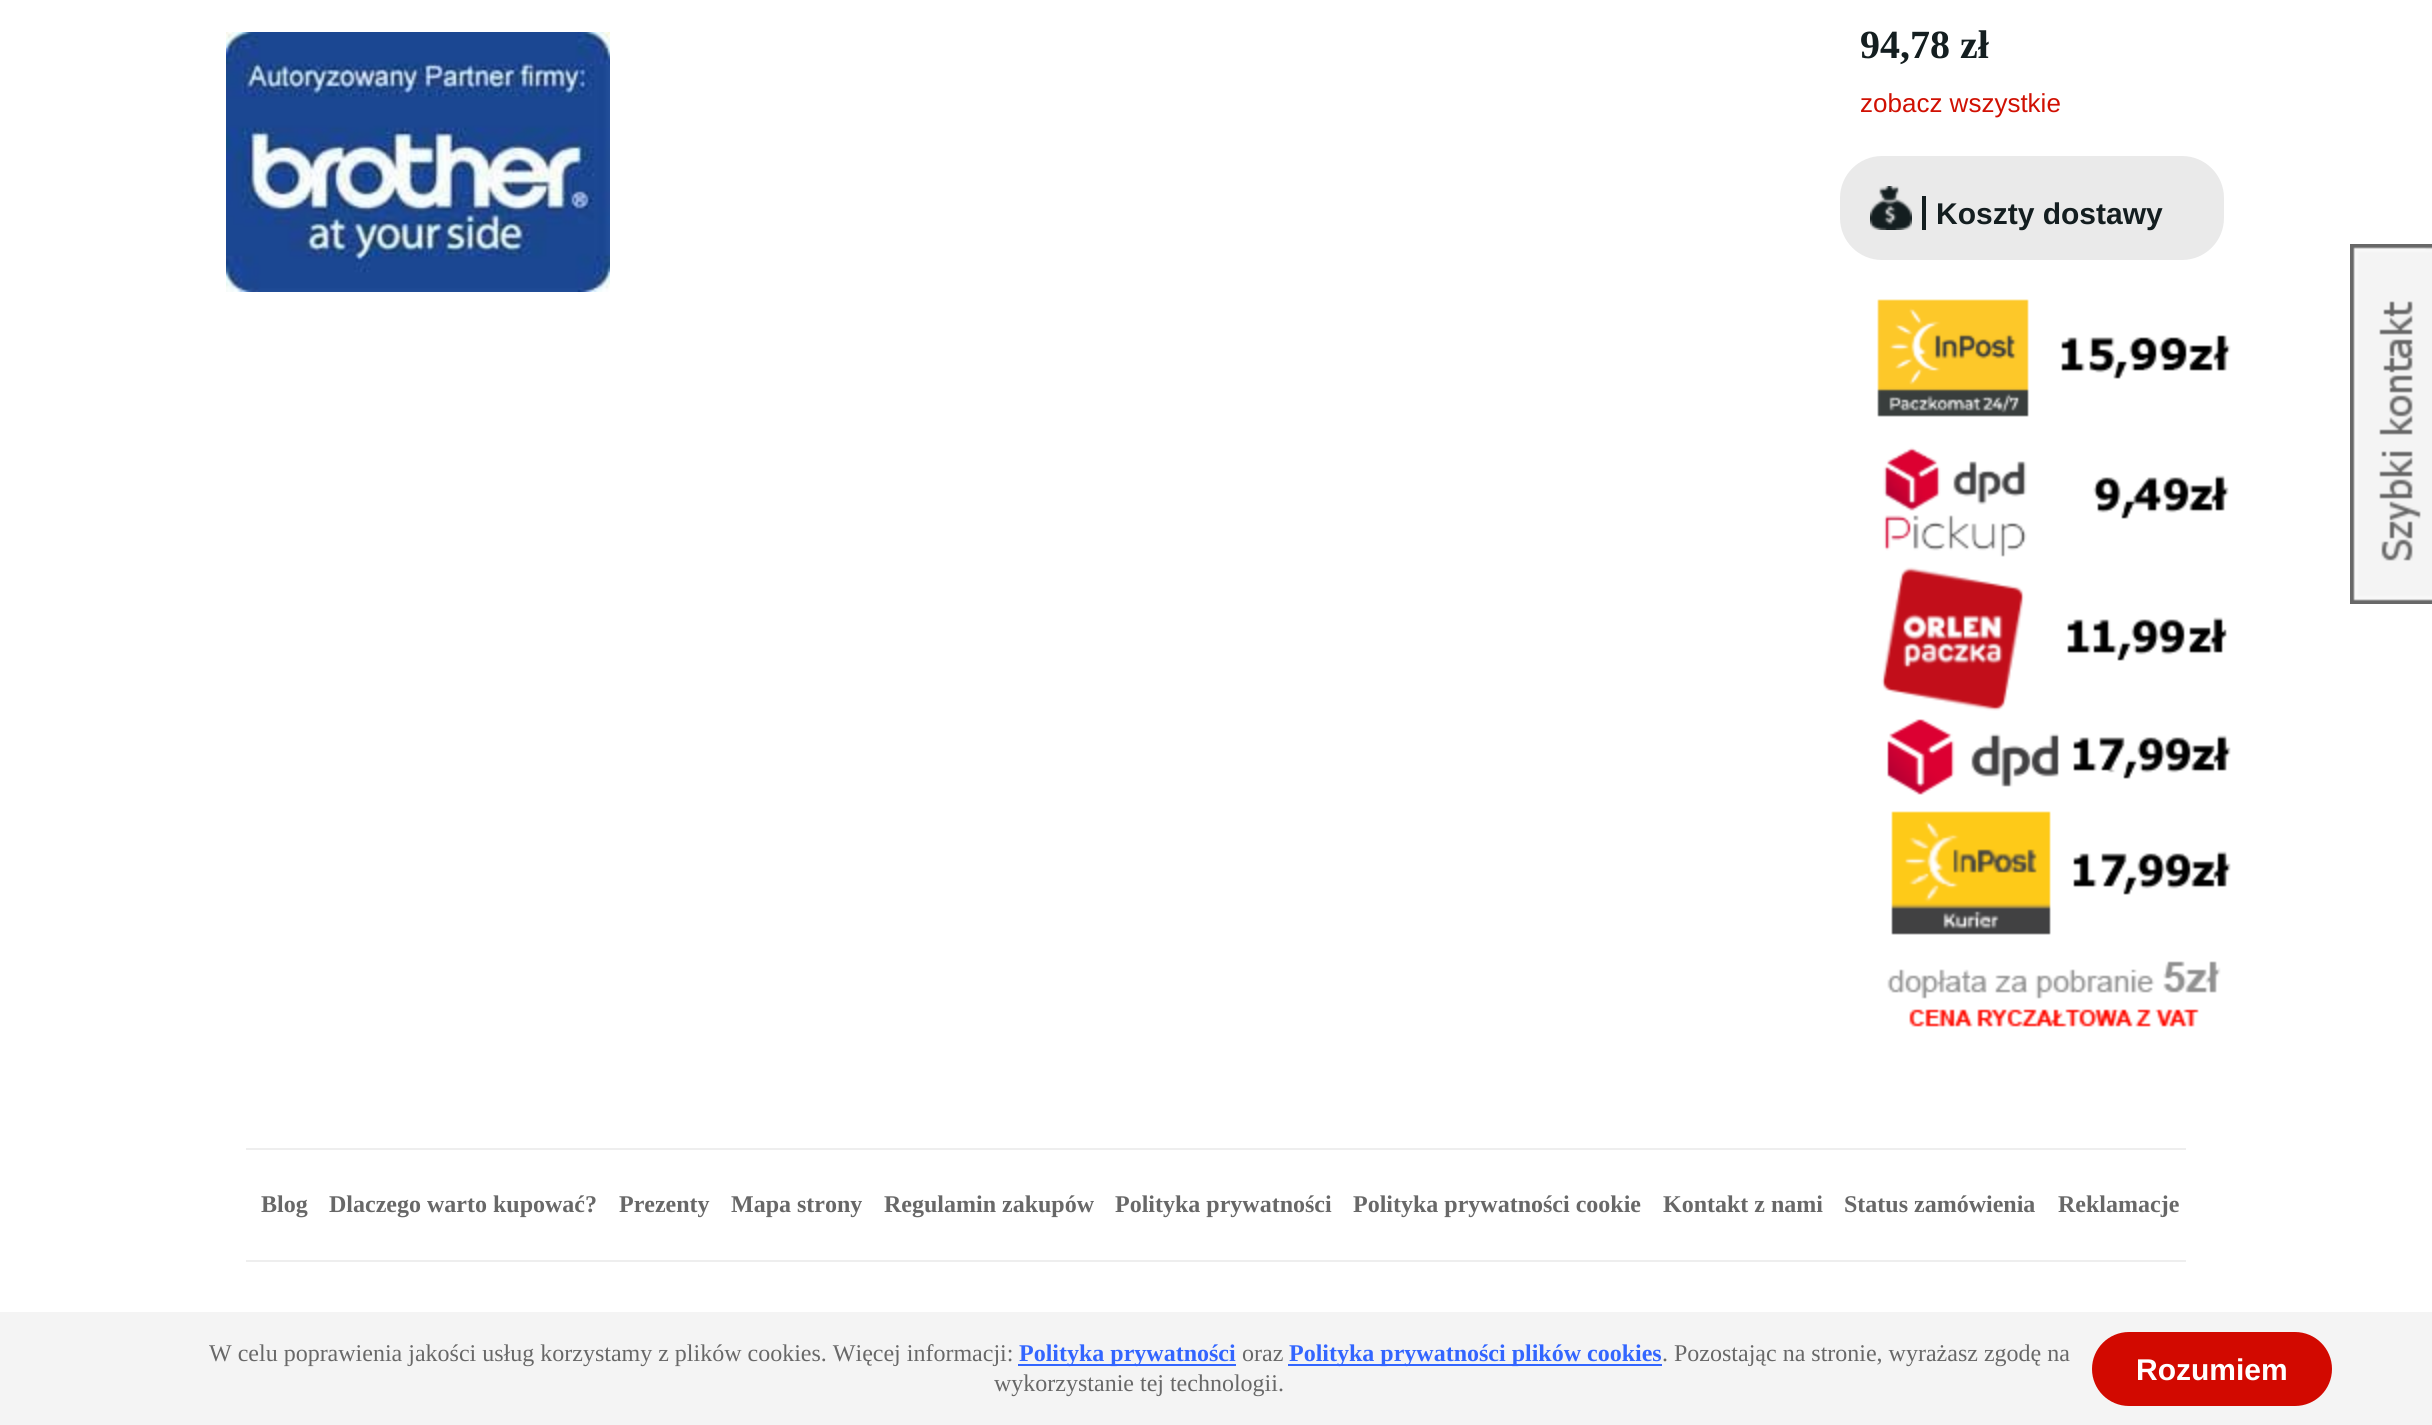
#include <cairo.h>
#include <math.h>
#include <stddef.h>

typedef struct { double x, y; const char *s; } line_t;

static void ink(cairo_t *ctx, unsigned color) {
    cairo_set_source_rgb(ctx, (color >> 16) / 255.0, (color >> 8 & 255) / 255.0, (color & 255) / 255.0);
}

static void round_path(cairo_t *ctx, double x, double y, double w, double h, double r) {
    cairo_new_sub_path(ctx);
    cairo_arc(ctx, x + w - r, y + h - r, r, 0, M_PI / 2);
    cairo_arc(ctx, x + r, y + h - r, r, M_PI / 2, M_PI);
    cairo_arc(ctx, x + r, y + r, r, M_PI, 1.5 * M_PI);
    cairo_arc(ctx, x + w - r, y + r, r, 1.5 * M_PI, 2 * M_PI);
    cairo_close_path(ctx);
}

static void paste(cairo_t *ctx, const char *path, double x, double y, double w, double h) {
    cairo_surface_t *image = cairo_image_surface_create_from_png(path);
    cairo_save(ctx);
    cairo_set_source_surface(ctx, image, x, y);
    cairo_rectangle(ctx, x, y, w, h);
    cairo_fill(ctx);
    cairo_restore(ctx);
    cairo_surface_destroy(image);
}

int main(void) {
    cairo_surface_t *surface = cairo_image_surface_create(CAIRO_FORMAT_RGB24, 2432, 1425);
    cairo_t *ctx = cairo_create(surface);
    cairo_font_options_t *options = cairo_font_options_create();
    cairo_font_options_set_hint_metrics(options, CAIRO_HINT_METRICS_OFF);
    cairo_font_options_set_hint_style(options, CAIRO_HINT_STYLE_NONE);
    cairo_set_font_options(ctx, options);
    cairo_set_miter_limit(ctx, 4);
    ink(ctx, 0xFFFFFF);
    cairo_paint(ctx);
    paste(ctx, "media/1.png", 226, 32, 384, 260);
    cairo_select_font_face(ctx, "Liberation Serif", CAIRO_FONT_SLANT_NORMAL, CAIRO_FONT_WEIGHT_BOLD);
    cairo_set_font_size(ctx, 40);
    ink(ctx, 0x141E20);
    cairo_move_to(ctx, 1860, 58);
    cairo_show_text(ctx, "94,78 zł");
    cairo_select_font_face(ctx, "Liberation Sans", CAIRO_FONT_SLANT_NORMAL, CAIRO_FONT_WEIGHT_NORMAL);
    cairo_set_font_size(ctx, 26);
    ink(ctx, 0xD01002);
    cairo_move_to(ctx, 1860, 112);
    cairo_show_text(ctx, "zobacz wszystkie");
    ink(ctx, 0xEAEAEA);
    round_path(ctx, 1840, 156, 384, 104, 42);
    cairo_fill(ctx);
    paste(ctx, "media/2.png", 1870, 186, 42, 44);
    cairo_select_font_face(ctx, "Liberation Sans", CAIRO_FONT_SLANT_NORMAL, CAIRO_FONT_WEIGHT_BOLD);
    cairo_set_font_size(ctx, 30);
    ink(ctx, 0x141E20);
    cairo_move_to(ctx, 1936, 224);
    cairo_show_text(ctx, "Koszty dostawy");
    cairo_rectangle(ctx, 1922, 196, 4, 34);
    cairo_fill(ctx);
    paste(ctx, "media/3.png", 1877, 299, 354, 728);
    ink(ctx, 0xEEEEEE);
    cairo_rectangle(ctx, 246, 1148, 1940, 2);
    cairo_fill(ctx);
    cairo_select_font_face(ctx, "Liberation Serif", CAIRO_FONT_SLANT_NORMAL, CAIRO_FONT_WEIGHT_BOLD);
    cairo_set_font_size(ctx, 24);
    ink(ctx, 0x686868);
    {
        static const line_t items[] = {
            {261, 1212, "Blog"},
            {329, 1212, "Dlaczego warto kupować?"},
            {619, 1212, "Prezenty"},
            {731, 1212, "Mapa strony"},
            {884, 1212, "Regulamin zakupów"},
            {1115, 1212, "Polityka prywatności"},
            {1353, 1212, "Polityka prywatności cookie"},
            {1663, 1212, "Kontakt z nami"},
            {1844, 1212, "Status zamówienia"},
            {2058, 1212, "Reklamacje"},
        };
        for (size_t i = 0; i < sizeof items / sizeof *items; i++) {
            cairo_move_to(ctx, items[i].x, items[i].y);
            cairo_show_text(ctx, items[i].s);
        }
    }
    ink(ctx, 0xEEEEEE);
    cairo_rectangle(ctx, 246, 1260, 1940, 2);
    cairo_fill(ctx);
    ink(ctx, 0xF4F4F4);
    cairo_rectangle(ctx, 0, 1312, 2432, 113);
    cairo_fill(ctx);
    cairo_select_font_face(ctx, "Liberation Serif", CAIRO_FONT_SLANT_NORMAL, CAIRO_FONT_WEIGHT_NORMAL);
    ink(ctx, 0x686868);
    cairo_move_to(ctx, 209, 1361);
    cairo_show_text(ctx, "W celu poprawienia jakości usług korzystamy z plików cookies. Więcej informacji:");
    ink(ctx, 0x3366FF);
    cairo_rectangle(ctx, 1018, 1364, 218, 2);
    cairo_fill(ctx);
    cairo_select_font_face(ctx, "Liberation Serif", CAIRO_FONT_SLANT_NORMAL, CAIRO_FONT_WEIGHT_BOLD);
    cairo_move_to(ctx, 1019, 1361);
    cairo_show_text(ctx, "Polityka prywatności");
    cairo_select_font_face(ctx, "Liberation Serif", CAIRO_FONT_SLANT_NORMAL, CAIRO_FONT_WEIGHT_NORMAL);
    ink(ctx, 0x686868);
    cairo_move_to(ctx, 1242, 1361);
    cairo_show_text(ctx, "oraz");
    ink(ctx, 0x3366FF);
    cairo_rectangle(ctx, 1288, 1364, 374, 2);
    cairo_fill(ctx);
    cairo_select_font_face(ctx, "Liberation Serif", CAIRO_FONT_SLANT_NORMAL, CAIRO_FONT_WEIGHT_BOLD);
    cairo_move_to(ctx, 1289, 1361);
    cairo_show_text(ctx, "Polityka prywatności plików cookies");
    cairo_select_font_face(ctx, "Liberation Serif", CAIRO_FONT_SLANT_NORMAL, CAIRO_FONT_WEIGHT_NORMAL);
    ink(ctx, 0x686868);
    cairo_move_to(ctx, 1662, 1361);
    cairo_show_text(ctx, ". Pozostając na stronie, wyrażasz zgodę na");
    cairo_move_to(ctx, 994, 1391);
    cairo_show_text(ctx, "wykorzystanie tej technologii.");
    ink(ctx, 0xD20900);
    round_path(ctx, 2092, 1332, 240, 74, 37);
    cairo_fill(ctx);
    cairo_select_font_face(ctx, "Liberation Sans", CAIRO_FONT_SLANT_NORMAL, CAIRO_FONT_WEIGHT_BOLD);
    cairo_set_font_size(ctx, 30);
    ink(ctx, 0xFFFFFF);
    cairo_move_to(ctx, 2136, 1380);
    cairo_show_text(ctx, "Rozumiem");
    paste(ctx, "media/4.png", 2350, 244, 82, 360);
    cairo_surface_write_to_png(surface, "image.png");
    cairo_font_options_destroy(options);
    cairo_destroy(ctx);
    cairo_surface_destroy(surface);
    return 0;
}
